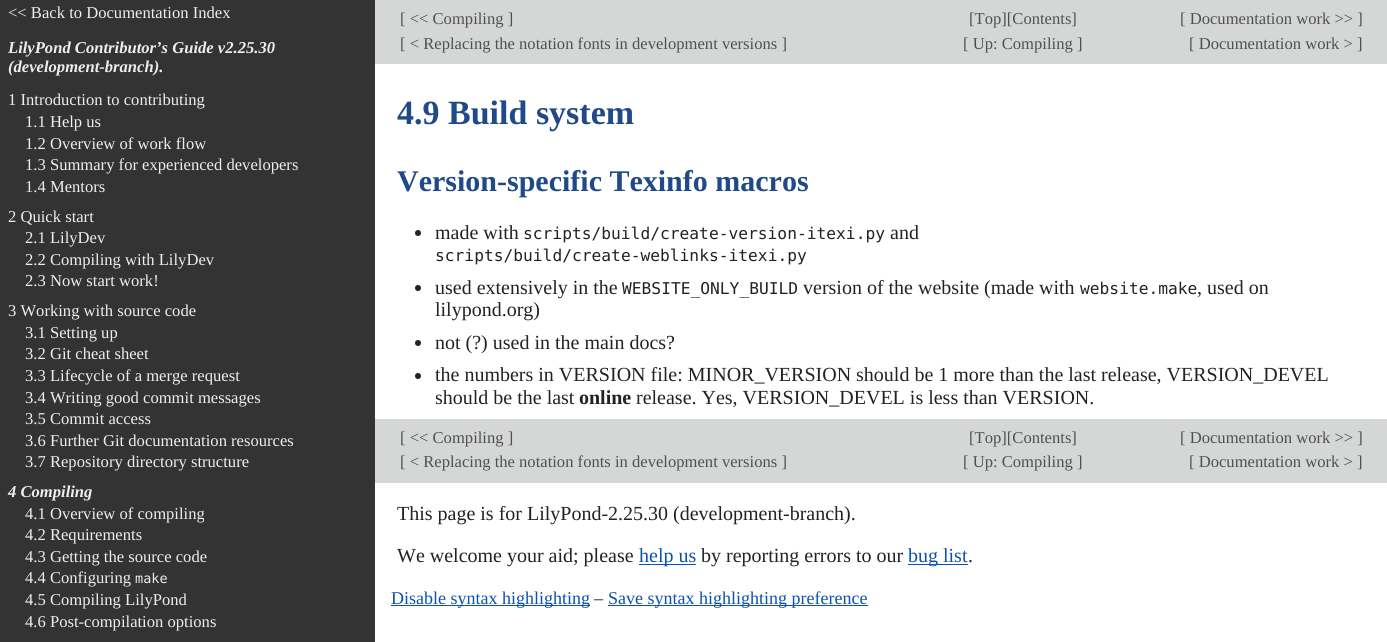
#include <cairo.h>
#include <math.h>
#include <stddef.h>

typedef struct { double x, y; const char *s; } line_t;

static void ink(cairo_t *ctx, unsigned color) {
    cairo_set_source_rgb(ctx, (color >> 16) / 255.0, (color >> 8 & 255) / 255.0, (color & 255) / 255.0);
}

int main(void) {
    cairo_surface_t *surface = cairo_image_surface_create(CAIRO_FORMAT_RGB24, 1387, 642);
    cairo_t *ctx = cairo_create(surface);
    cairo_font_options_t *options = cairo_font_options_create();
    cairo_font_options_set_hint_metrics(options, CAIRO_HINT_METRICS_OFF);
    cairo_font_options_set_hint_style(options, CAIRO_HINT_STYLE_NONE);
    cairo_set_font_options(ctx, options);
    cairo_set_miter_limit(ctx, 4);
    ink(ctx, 0xFFFFFF);
    cairo_paint(ctx);
    ink(ctx, 0x333333);
    cairo_rectangle(ctx, 0, 0, 375, 642);
    cairo_fill(ctx);
    cairo_select_font_face(ctx, "Liberation Serif", CAIRO_FONT_SLANT_NORMAL, CAIRO_FONT_WEIGHT_NORMAL);
    cairo_set_font_size(ctx, 16.6);
    ink(ctx, 0xEEEEEE);
    cairo_move_to(ctx, 8, 18);
    cairo_show_text(ctx, "<< Back to Documentation Index");
    cairo_select_font_face(ctx, "Liberation Serif", CAIRO_FONT_SLANT_ITALIC, CAIRO_FONT_WEIGHT_BOLD);
    cairo_move_to(ctx, 8, 53);
    cairo_show_text(ctx, "LilyPond Contributor’s Guide v2.25.30");
    cairo_move_to(ctx, 8, 72);
    cairo_show_text(ctx, "(development-branch).");
    cairo_select_font_face(ctx, "Liberation Serif", CAIRO_FONT_SLANT_NORMAL, CAIRO_FONT_WEIGHT_NORMAL);
    {
        static const line_t items[] = {
            {8, 105, "1 Introduction to contributing"},
            {25, 127, "1.1 Help us"},
            {25, 149, "1.2 Overview of work flow"},
            {25, 170, "1.3 Summary for experienced developers"},
            {25, 192, "1.4 Mentors"},
            {8, 222, "2 Quick start"},
            {25, 243, "2.1 LilyDev"},
            {25, 265, "2.2 Compiling with LilyDev"},
            {25, 286, "2.3 Now start work!"},
            {8, 316, "3 Working with source code"},
            {25, 338, "3.1 Setting up"},
            {25, 359, "3.2 Git cheat sheet"},
            {25, 381, "3.3 Lifecycle of a merge request"},
            {25, 403, "3.4 Writing good commit messages"},
            {25, 424, "3.5 Commit access"},
            {25, 446, "3.6 Further Git documentation resources"},
            {25, 467, "3.7 Repository directory structure"},
        };
        for (size_t i = 0; i < sizeof items / sizeof *items; i++) {
            cairo_move_to(ctx, items[i].x, items[i].y);
            cairo_show_text(ctx, items[i].s);
        }
    }
    cairo_select_font_face(ctx, "Liberation Serif", CAIRO_FONT_SLANT_ITALIC, CAIRO_FONT_WEIGHT_BOLD);
    cairo_move_to(ctx, 8, 497);
    cairo_show_text(ctx, "4 Compiling");
    cairo_select_font_face(ctx, "Liberation Serif", CAIRO_FONT_SLANT_NORMAL, CAIRO_FONT_WEIGHT_NORMAL);
    {
        static const line_t items[] = {
            {25, 519, "4.1 Overview of compiling"},
            {25, 540, "4.2 Requirements"},
            {25, 562, "4.3 Getting the source code"},
            {25, 583, "4.4 Configuring"},
        };
        for (size_t i = 0; i < sizeof items / sizeof *items; i++) {
            cairo_move_to(ctx, items[i].x, items[i].y);
            cairo_show_text(ctx, items[i].s);
        }
    }
    cairo_select_font_face(ctx, "DejaVu Sans Mono", CAIRO_FONT_SLANT_NORMAL, CAIRO_FONT_WEIGHT_NORMAL);
    cairo_set_font_size(ctx, 13.5);
    cairo_move_to(ctx, 135, 583);
    cairo_show_text(ctx, "make");
    cairo_select_font_face(ctx, "Liberation Serif", CAIRO_FONT_SLANT_NORMAL, CAIRO_FONT_WEIGHT_NORMAL);
    cairo_set_font_size(ctx, 16.6);
    cairo_move_to(ctx, 25, 605);
    cairo_show_text(ctx, "4.5 Compiling LilyPond");
    cairo_move_to(ctx, 25, 627);
    cairo_show_text(ctx, "4.6 Post-compilation options");
    ink(ctx, 0xD5D7D6);
    cairo_rectangle(ctx, 375, 0, 1012, 64);
    cairo_fill(ctx);
    ink(ctx, 0x505050);
    {
        static const line_t items[] = {
            {400, 24, "[ << Compiling ]"},
            {969, 24, "[Top][Contents]"},
            {1180, 24, "[ Documentation work >> ]"},
            {400, 49, "[ < Replacing the notation fonts in development versions ]"},
            {963, 49, "[ Up: Compiling ]"},
            {1189, 49, "[ Documentation work > ]"},
        };
        for (size_t i = 0; i < sizeof items / sizeof *items; i++) {
            cairo_move_to(ctx, items[i].x, items[i].y);
            cairo_show_text(ctx, items[i].s);
        }
    }
    cairo_select_font_face(ctx, "Liberation Serif", CAIRO_FONT_SLANT_NORMAL, CAIRO_FONT_WEIGHT_BOLD);
    cairo_set_font_size(ctx, 34);
    ink(ctx, 0x204A87);
    cairo_move_to(ctx, 397, 124);
    cairo_show_text(ctx, "4.9 Build system");
    cairo_set_font_size(ctx, 30);
    cairo_move_to(ctx, 397, 191);
    cairo_show_text(ctx, "Version-specific Texinfo macros");
    ink(ctx, 0x222222);
    cairo_new_path(ctx);
    cairo_arc(ctx, 418, 233, 3, 0, 2 * M_PI);
    cairo_fill(ctx);
    cairo_select_font_face(ctx, "Liberation Serif", CAIRO_FONT_SLANT_NORMAL, CAIRO_FONT_WEIGHT_NORMAL);
    cairo_set_font_size(ctx, 20);
    cairo_move_to(ctx, 435, 239);
    cairo_show_text(ctx, "made with");
    cairo_select_font_face(ctx, "DejaVu Sans Mono", CAIRO_FONT_SLANT_NORMAL, CAIRO_FONT_WEIGHT_NORMAL);
    cairo_set_font_size(ctx, 16.25);
    cairo_move_to(ctx, 523, 239);
    cairo_show_text(ctx, "scripts/build/create-version-itexi.py");
    cairo_select_font_face(ctx, "Liberation Serif", CAIRO_FONT_SLANT_NORMAL, CAIRO_FONT_WEIGHT_NORMAL);
    cairo_set_font_size(ctx, 20);
    cairo_move_to(ctx, 890, 239);
    cairo_show_text(ctx, "and");
    cairo_select_font_face(ctx, "DejaVu Sans Mono", CAIRO_FONT_SLANT_NORMAL, CAIRO_FONT_WEIGHT_NORMAL);
    cairo_set_font_size(ctx, 16.25);
    cairo_move_to(ctx, 435, 261);
    cairo_show_text(ctx, "scripts/build/create-weblinks-itexi.py");
    cairo_new_path(ctx);
    cairo_arc(ctx, 418, 288, 3, 0, 2 * M_PI);
    cairo_fill(ctx);
    cairo_select_font_face(ctx, "Liberation Serif", CAIRO_FONT_SLANT_NORMAL, CAIRO_FONT_WEIGHT_NORMAL);
    cairo_set_font_size(ctx, 20);
    cairo_move_to(ctx, 435, 294);
    cairo_show_text(ctx, "used extensively in the");
    cairo_select_font_face(ctx, "DejaVu Sans Mono", CAIRO_FONT_SLANT_NORMAL, CAIRO_FONT_WEIGHT_NORMAL);
    cairo_set_font_size(ctx, 16.25);
    cairo_move_to(ctx, 622, 294);
    cairo_show_text(ctx, "WEBSITE_ONLY_BUILD");
    cairo_select_font_face(ctx, "Liberation Serif", CAIRO_FONT_SLANT_NORMAL, CAIRO_FONT_WEIGHT_NORMAL);
    cairo_set_font_size(ctx, 20);
    cairo_move_to(ctx, 803, 294);
    cairo_show_text(ctx, "version of the website (made with");
    cairo_select_font_face(ctx, "DejaVu Sans Mono", CAIRO_FONT_SLANT_NORMAL, CAIRO_FONT_WEIGHT_NORMAL);
    cairo_set_font_size(ctx, 16.25);
    cairo_move_to(ctx, 1080, 294);
    cairo_show_text(ctx, "website.make");
    cairo_select_font_face(ctx, "Liberation Serif", CAIRO_FONT_SLANT_NORMAL, CAIRO_FONT_WEIGHT_NORMAL);
    cairo_set_font_size(ctx, 20);
    cairo_move_to(ctx, 1197, 294);
    cairo_show_text(ctx, ", used on");
    cairo_move_to(ctx, 435, 316);
    cairo_show_text(ctx, "lilypond.org)");
    cairo_new_path(ctx);
    cairo_arc(ctx, 418, 343, 3, 0, 2 * M_PI);
    cairo_fill(ctx);
    cairo_move_to(ctx, 435, 349);
    cairo_show_text(ctx, "not (?) used in the main docs?");
    cairo_new_path(ctx);
    cairo_arc(ctx, 418, 376, 3, 0, 2 * M_PI);
    cairo_fill(ctx);
    cairo_move_to(ctx, 435, 381);
    cairo_show_text(ctx, "the numbers in VERSION file: MINOR_VERSION should be 1 more than the last release, VERSION_DEVEL");
    cairo_move_to(ctx, 435, 404);
    cairo_show_text(ctx, "should be the last");
    cairo_select_font_face(ctx, "Liberation Serif", CAIRO_FONT_SLANT_NORMAL, CAIRO_FONT_WEIGHT_BOLD);
    cairo_move_to(ctx, 579, 404);
    cairo_show_text(ctx, "online");
    cairo_select_font_face(ctx, "Liberation Serif", CAIRO_FONT_SLANT_NORMAL, CAIRO_FONT_WEIGHT_NORMAL);
    cairo_move_to(ctx, 636, 404);
    cairo_show_text(ctx, "release. Yes, VERSION_DEVEL is less than VERSION.");
    ink(ctx, 0xD5D7D6);
    cairo_rectangle(ctx, 375, 419, 1012, 64);
    cairo_fill(ctx);
    cairo_set_font_size(ctx, 16.6);
    ink(ctx, 0x505050);
    {
        static const line_t items[] = {
            {400, 443, "[ << Compiling ]"},
            {969, 443, "[Top][Contents]"},
            {1180, 443, "[ Documentation work >> ]"},
            {400, 467, "[ < Replacing the notation fonts in development versions ]"},
            {963, 467, "[ Up: Compiling ]"},
            {1189, 467, "[ Documentation work > ]"},
        };
        for (size_t i = 0; i < sizeof items / sizeof *items; i++) {
            cairo_move_to(ctx, items[i].x, items[i].y);
            cairo_show_text(ctx, items[i].s);
        }
    }
    cairo_set_font_size(ctx, 20);
    ink(ctx, 0x222222);
    cairo_move_to(ctx, 397, 520);
    cairo_show_text(ctx, "This page is for LilyPond-2.25.30 (development-branch).");
    cairo_move_to(ctx, 397, 562);
    cairo_show_text(ctx, "We welcome your aid; please");
    ink(ctx, 0x0C51AB);
    cairo_rectangle(ctx, 639, 564, 57, 1);
    cairo_fill(ctx);
    cairo_move_to(ctx, 639, 562);
    cairo_show_text(ctx, "help us");
    ink(ctx, 0x222222);
    cairo_move_to(ctx, 701, 562);
    cairo_show_text(ctx, "by reporting errors to our");
    ink(ctx, 0x0C51AB);
    cairo_rectangle(ctx, 908, 564, 60, 1);
    cairo_fill(ctx);
    cairo_move_to(ctx, 908, 562);
    cairo_show_text(ctx, "bug list");
    ink(ctx, 0x222222);
    cairo_move_to(ctx, 968, 562);
    cairo_show_text(ctx, ".");
    ink(ctx, 0x0C51AB);
    cairo_rectangle(ctx, 391, 605, 199, 1);
    cairo_fill(ctx);
    cairo_set_font_size(ctx, 18);
    cairo_move_to(ctx, 391, 604);
    cairo_show_text(ctx, "Disable syntax highlighting");
    ink(ctx, 0x222222);
    cairo_move_to(ctx, 594, 604);
    cairo_show_text(ctx, "–");
    ink(ctx, 0x0C51AB);
    cairo_rectangle(ctx, 608, 605, 260, 1);
    cairo_fill(ctx);
    cairo_move_to(ctx, 608, 604);
    cairo_show_text(ctx, "Save syntax highlighting preference");
    cairo_surface_write_to_png(surface, "image.png");
    cairo_font_options_destroy(options);
    cairo_destroy(ctx);
    cairo_surface_destroy(surface);
    return 0;
}
